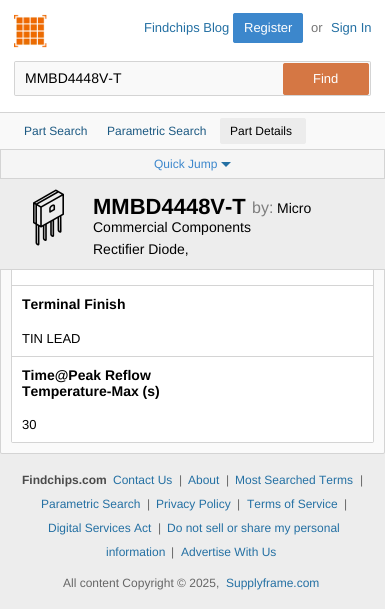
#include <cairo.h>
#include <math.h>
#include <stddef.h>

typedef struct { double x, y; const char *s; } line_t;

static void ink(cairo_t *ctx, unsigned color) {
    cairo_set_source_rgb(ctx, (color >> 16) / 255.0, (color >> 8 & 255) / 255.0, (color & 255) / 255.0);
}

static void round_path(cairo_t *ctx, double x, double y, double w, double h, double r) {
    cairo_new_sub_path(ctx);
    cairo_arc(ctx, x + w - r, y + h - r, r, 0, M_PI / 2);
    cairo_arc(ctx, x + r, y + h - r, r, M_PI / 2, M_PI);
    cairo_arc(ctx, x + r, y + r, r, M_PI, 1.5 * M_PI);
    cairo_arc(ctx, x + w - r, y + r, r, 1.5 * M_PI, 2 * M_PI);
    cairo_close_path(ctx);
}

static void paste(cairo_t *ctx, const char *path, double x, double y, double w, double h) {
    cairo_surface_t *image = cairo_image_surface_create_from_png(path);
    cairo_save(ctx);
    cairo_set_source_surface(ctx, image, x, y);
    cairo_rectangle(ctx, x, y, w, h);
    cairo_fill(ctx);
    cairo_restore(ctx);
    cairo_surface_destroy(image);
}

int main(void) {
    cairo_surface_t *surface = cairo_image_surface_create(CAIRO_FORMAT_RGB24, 385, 609);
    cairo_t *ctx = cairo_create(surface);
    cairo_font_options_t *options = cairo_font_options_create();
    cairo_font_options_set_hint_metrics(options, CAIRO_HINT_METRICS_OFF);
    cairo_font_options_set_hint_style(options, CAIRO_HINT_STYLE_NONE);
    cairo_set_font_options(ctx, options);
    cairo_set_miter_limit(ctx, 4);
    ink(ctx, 0xEDEDED);
    cairo_paint(ctx);
    ink(ctx, 0xFAFAFA);
    round_path(ctx, 0.5, -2.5, 384, 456, 1.5);
    cairo_fill_preserve(ctx);
    ink(ctx, 0xD4D4D4);
    cairo_set_line_width(ctx, 1);
    cairo_stroke(ctx);
    round_path(ctx, 11.5, -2.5, 362, 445, 1.5);
    cairo_stroke(ctx);
    ink(ctx, 0xFFFFFF);
    cairo_rectangle(ctx, 0, 0, 385, 112);
    cairo_fill(ctx);
    ink(ctx, 0xD4D4D4);
    cairo_rectangle(ctx, 0, 178, 385, 1);
    cairo_fill(ctx);
    paste(ctx, "media/1.png", 14, 14, 33, 34);
    cairo_select_font_face(ctx, "Liberation Sans", CAIRO_FONT_SLANT_NORMAL, CAIRO_FONT_WEIGHT_NORMAL);
    cairo_set_font_size(ctx, 13);
    ink(ctx, 0x2470A3);
    cairo_move_to(ctx, 144, 32);
    cairo_show_text(ctx, "Findchips Blog");
    ink(ctx, 0x3C87CC);
    round_path(ctx, 233.5, 13.5, 69, 29, 1.5);
    cairo_fill_preserve(ctx);
    cairo_stroke(ctx);
    ink(ctx, 0xFFFFFF);
    cairo_move_to(ctx, 244, 32);
    cairo_show_text(ctx, "Register");
    ink(ctx, 0x757575);
    cairo_move_to(ctx, 311, 32);
    cairo_show_text(ctx, "or");
    ink(ctx, 0x2470A3);
    cairo_move_to(ctx, 331, 32);
    cairo_show_text(ctx, "Sign In");
    round_path(ctx, 14.5, 61.5, 356, 34, 1.5);
    ink(ctx, 0xD4D4D4);
    cairo_stroke(ctx);
    ink(ctx, 0xF9F9F9);
    round_path(ctx, 15, 62, 355, 33, 2);
    cairo_fill(ctx);
    cairo_set_font_size(ctx, 14);
    ink(ctx, 0x000000);
    cairo_move_to(ctx, 25, 83);
    cairo_show_text(ctx, "MMBD4448V-T");
    ink(ctx, 0xD57744);
    round_path(ctx, 283.5, 63.5, 85, 31, 1.5);
    cairo_fill_preserve(ctx);
    cairo_stroke(ctx);
    cairo_set_font_size(ctx, 13);
    ink(ctx, 0xFFFFFF);
    cairo_move_to(ctx, 313, 83);
    cairo_show_text(ctx, "Find");
    ink(ctx, 0xF9F9F9);
    cairo_rectangle(ctx, 0, 113, 385, 36);
    cairo_fill(ctx);
    ink(ctx, 0xD4D4D4);
    cairo_rectangle(ctx, 0, 112, 385, 1);
    cairo_fill(ctx);
    cairo_set_font_size(ctx, 12);
    ink(ctx, 0x1C5982);
    cairo_move_to(ctx, 24, 135);
    cairo_show_text(ctx, "Part Search");
    cairo_move_to(ctx, 107, 135);
    cairo_show_text(ctx, "Parametric Search");
    ink(ctx, 0xECECEC);
    round_path(ctx, 220, 118, 86, 26, 2);
    cairo_fill(ctx);
    ink(ctx, 0x000000);
    cairo_move_to(ctx, 230, 135);
    cairo_show_text(ctx, "Part Details");
    ink(ctx, 0xF5F5F5);
    cairo_rectangle(ctx, 1, 150, 383, 28);
    cairo_fill(ctx);
    ink(ctx, 0xD4D4D4);
    cairo_rectangle(ctx, 0, 149, 385, 1);
    cairo_fill(ctx);
    ink(ctx, 0x3C87CC);
    cairo_move_to(ctx, 154, 168);
    cairo_show_text(ctx, "Quick Jump");
    ink(ctx, 0x2470A3);
    cairo_new_path(ctx);
    cairo_move_to(ctx, 221, 162);
    cairo_line_to(ctx, 231, 162);
    cairo_line_to(ctx, 226, 167);
    cairo_close_path(ctx);
    cairo_fill(ctx);
    ink(ctx, 0xEDEDED);
    cairo_rectangle(ctx, 0, 179, 385, 90);
    cairo_fill(ctx);
    ink(ctx, 0xD4D4D4);
    cairo_rectangle(ctx, 0, 269, 385, 1);
    cairo_fill(ctx);
    paste(ctx, "media/2.png", 33, 189, 31, 57);
    cairo_select_font_face(ctx, "Liberation Sans", CAIRO_FONT_SLANT_NORMAL, CAIRO_FONT_WEIGHT_BOLD);
    cairo_set_font_size(ctx, 22);
    ink(ctx, 0x000000);
    cairo_move_to(ctx, 93, 214);
    cairo_show_text(ctx, "MMBD4448V-T");
    cairo_select_font_face(ctx, "Liberation Sans", CAIRO_FONT_SLANT_NORMAL, CAIRO_FONT_WEIGHT_NORMAL);
    cairo_set_font_size(ctx, 16);
    ink(ctx, 0x7E7E7E);
    cairo_move_to(ctx, 252, 213);
    cairo_show_text(ctx, "by:");
    cairo_set_font_size(ctx, 14);
    ink(ctx, 0x000000);
    {
        static const line_t items[] = {
            {277, 213, "Micro"},
            {93, 232, "Commercial Components"},
            {93, 254, "Rectifier Diode,"},
        };
        for (size_t i = 0; i < sizeof items / sizeof *items; i++) {
            cairo_move_to(ctx, items[i].x, items[i].y);
            cairo_show_text(ctx, items[i].s);
        }
    }
    ink(ctx, 0xFFFFFF);
    cairo_rectangle(ctx, 12, 270, 361, 172);
    cairo_fill(ctx);
    ink(ctx, 0xD4D4D4);
    cairo_rectangle(ctx, 12, 285, 361, 1);
    cairo_fill(ctx);
    cairo_select_font_face(ctx, "Liberation Sans", CAIRO_FONT_SLANT_NORMAL, CAIRO_FONT_WEIGHT_BOLD);
    ink(ctx, 0x000000);
    cairo_move_to(ctx, 22, 309);
    cairo_show_text(ctx, "Terminal Finish");
    cairo_select_font_face(ctx, "Liberation Sans", CAIRO_FONT_SLANT_NORMAL, CAIRO_FONT_WEIGHT_NORMAL);
    cairo_set_font_size(ctx, 13);
    cairo_move_to(ctx, 22, 343);
    cairo_show_text(ctx, "TIN LEAD");
    ink(ctx, 0xD4D4D4);
    cairo_rectangle(ctx, 12, 356, 361, 1);
    cairo_fill(ctx);
    cairo_select_font_face(ctx, "Liberation Sans", CAIRO_FONT_SLANT_NORMAL, CAIRO_FONT_WEIGHT_BOLD);
    cairo_set_font_size(ctx, 14);
    ink(ctx, 0x000000);
    cairo_move_to(ctx, 22, 380);
    cairo_show_text(ctx, "Time@Peak Reflow");
    cairo_move_to(ctx, 22, 396);
    cairo_show_text(ctx, "Temperature-Max (s)");
    cairo_select_font_face(ctx, "Liberation Sans", CAIRO_FONT_SLANT_NORMAL, CAIRO_FONT_WEIGHT_NORMAL);
    cairo_set_font_size(ctx, 13);
    cairo_move_to(ctx, 22, 429);
    cairo_show_text(ctx, "30");
    cairo_select_font_face(ctx, "Liberation Sans", CAIRO_FONT_SLANT_NORMAL, CAIRO_FONT_WEIGHT_BOLD);
    cairo_set_font_size(ctx, 12);
    ink(ctx, 0x4A4A4A);
    cairo_move_to(ctx, 22, 484);
    cairo_show_text(ctx, "Findchips.com");
    cairo_select_font_face(ctx, "Liberation Sans", CAIRO_FONT_SLANT_NORMAL, CAIRO_FONT_WEIGHT_NORMAL);
    ink(ctx, 0x2470A3);
    cairo_move_to(ctx, 113, 484);
    cairo_show_text(ctx, "Contact Us");
    ink(ctx, 0x666666);
    cairo_move_to(ctx, 179, 484);
    cairo_show_text(ctx, "|");
    ink(ctx, 0x2470A3);
    cairo_move_to(ctx, 188, 484);
    cairo_show_text(ctx, "About");
    ink(ctx, 0x666666);
    cairo_move_to(ctx, 226, 484);
    cairo_show_text(ctx, "|");
    ink(ctx, 0x2470A3);
    cairo_move_to(ctx, 235, 484);
    cairo_show_text(ctx, "Most Searched Terms");
    ink(ctx, 0x666666);
    cairo_move_to(ctx, 360, 484);
    cairo_show_text(ctx, "|");
    ink(ctx, 0x2470A3);
    cairo_move_to(ctx, 41, 508);
    cairo_show_text(ctx, "Parametric Search");
    ink(ctx, 0x666666);
    cairo_move_to(ctx, 147, 508);
    cairo_show_text(ctx, "|");
    ink(ctx, 0x2470A3);
    cairo_move_to(ctx, 156, 508);
    cairo_show_text(ctx, "Privacy Policy");
    ink(ctx, 0x666666);
    cairo_move_to(ctx, 237, 508);
    cairo_show_text(ctx, "|");
    ink(ctx, 0x2470A3);
    cairo_move_to(ctx, 247, 508);
    cairo_show_text(ctx, "Terms of Service");
    ink(ctx, 0x666666);
    cairo_move_to(ctx, 344, 508);
    cairo_show_text(ctx, "|");
    ink(ctx, 0x2470A3);
    cairo_move_to(ctx, 48, 532);
    cairo_show_text(ctx, "Digital Services Act");
    ink(ctx, 0x666666);
    cairo_move_to(ctx, 158, 532);
    cairo_show_text(ctx, "|");
    ink(ctx, 0x2470A3);
    cairo_move_to(ctx, 167, 532);
    cairo_show_text(ctx, "Do not sell or share my personal");
    cairo_move_to(ctx, 106, 556);
    cairo_show_text(ctx, "information");
    ink(ctx, 0x666666);
    cairo_move_to(ctx, 171, 556);
    cairo_show_text(ctx, "|");
    ink(ctx, 0x2470A3);
    cairo_move_to(ctx, 181, 556);
    cairo_show_text(ctx, "Advertise With Us");
    ink(ctx, 0x666666);
    cairo_move_to(ctx, 63, 587);
    cairo_show_text(ctx, "All content Copyright © 2025,");
    ink(ctx, 0x2470A3);
    cairo_move_to(ctx, 226, 587);
    cairo_show_text(ctx, "Supplyframe.com");
    cairo_surface_write_to_png(surface, "image.png");
    cairo_font_options_destroy(options);
    cairo_destroy(ctx);
    cairo_surface_destroy(surface);
    return 0;
}
